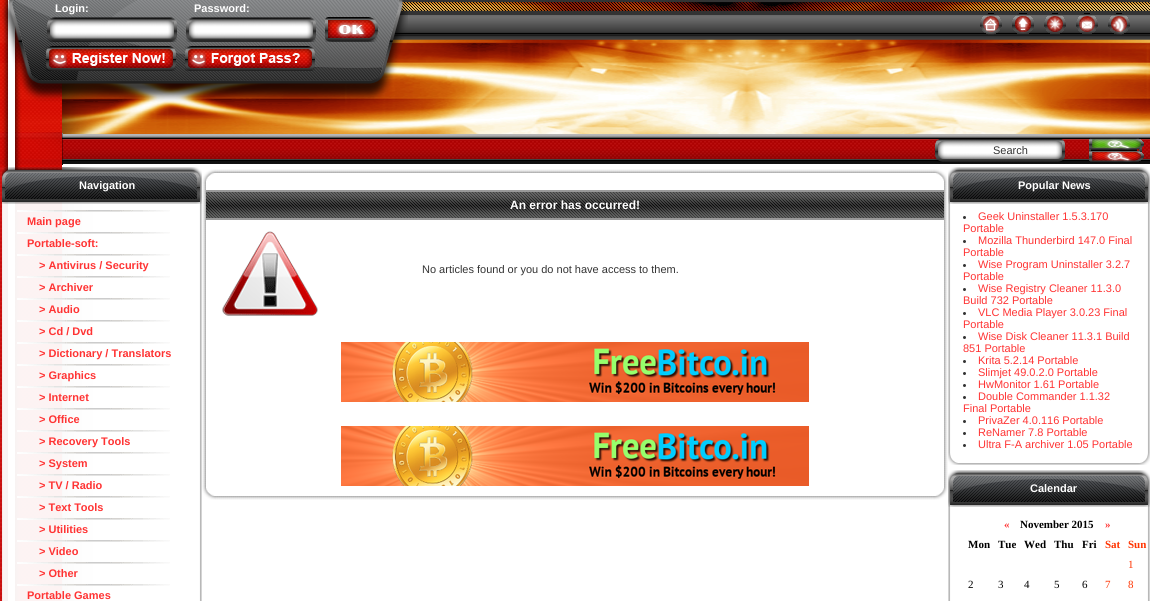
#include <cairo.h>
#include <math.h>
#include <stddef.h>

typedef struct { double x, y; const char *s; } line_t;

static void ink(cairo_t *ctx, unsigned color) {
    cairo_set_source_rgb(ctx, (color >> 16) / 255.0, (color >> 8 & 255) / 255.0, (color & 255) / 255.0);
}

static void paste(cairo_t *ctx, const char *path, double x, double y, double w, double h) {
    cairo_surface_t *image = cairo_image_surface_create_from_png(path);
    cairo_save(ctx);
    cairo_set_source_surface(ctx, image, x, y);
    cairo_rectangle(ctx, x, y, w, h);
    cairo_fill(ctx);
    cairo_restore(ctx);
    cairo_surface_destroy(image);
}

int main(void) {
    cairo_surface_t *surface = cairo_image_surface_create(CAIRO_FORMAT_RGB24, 1150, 601);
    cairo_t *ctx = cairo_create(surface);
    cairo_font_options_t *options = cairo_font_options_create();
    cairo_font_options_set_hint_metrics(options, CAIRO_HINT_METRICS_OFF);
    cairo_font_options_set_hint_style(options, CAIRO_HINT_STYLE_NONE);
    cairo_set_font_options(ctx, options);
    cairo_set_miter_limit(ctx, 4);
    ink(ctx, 0xFFFFFF);
    cairo_paint(ctx);
    paste(ctx, "media/1.png", 0, 0, 1150, 134);
    paste(ctx, "media/8.png", 393, 0, 757, 40);
    paste(ctx, "media/2.png", 0, 0, 408, 134);
    cairo_select_font_face(ctx, "Liberation Sans", CAIRO_FONT_SLANT_NORMAL, CAIRO_FONT_WEIGHT_BOLD);
    cairo_set_font_size(ctx, 11);
    ink(ctx, 0xFFFFFF);
    cairo_move_to(ctx, 55, 12);
    cairo_show_text(ctx, "Login:");
    cairo_move_to(ctx, 194, 12);
    cairo_show_text(ctx, "Password:");
    paste(ctx, "media/3.png", 47, 17, 130, 25);
    paste(ctx, "media/4.png", 186, 17, 130, 25);
    paste(ctx, "media/5.png", 325, 17, 53, 25);
    paste(ctx, "media/6.png", 46, 46, 130, 25);
    paste(ctx, "media/7.png", 185, 46, 130, 25);
    paste(ctx, "media/9.png", 980, 13, 22, 22);
    paste(ctx, "media/10.png", 1012, 13, 22, 21);
    paste(ctx, "media/11.png", 1044, 13, 22, 21);
    paste(ctx, "media/12.png", 1076, 13, 22, 21);
    paste(ctx, "media/13.png", 1108, 13, 22, 22);
    paste(ctx, "media/14.png", 63, 134, 1087, 30);
    paste(ctx, "media/15.png", 0, 132, 63, 35);
    paste(ctx, "media/16.png", 934, 139, 132, 23);
    cairo_select_font_face(ctx, "Liberation Sans", CAIRO_FONT_SLANT_NORMAL, CAIRO_FONT_WEIGHT_NORMAL);
    ink(ctx, 0x333333);
    cairo_move_to(ctx, 993, 154);
    cairo_show_text(ctx, "Search");
    paste(ctx, "media/17.png", 1089, 138, 55, 24);
    paste(ctx, "media/18.png", 1090, 138, 52, 24);
    paste(ctx, "media/19.png", 0, 167, 2, 434);
    paste(ctx, "media/20.png", 2, 204, 200, 397);
    paste(ctx, "media/21.png", 2, 167, 200, 37);
    cairo_select_font_face(ctx, "Liberation Sans", CAIRO_FONT_SLANT_NORMAL, CAIRO_FONT_WEIGHT_BOLD);
    ink(ctx, 0xFFFFFF);
    cairo_move_to(ctx, 79, 189);
    cairo_show_text(ctx, "Navigation");
    paste(ctx, "media/22.png", 17, 210, 153, 2);
    ink(ctx, 0xFF3333);
    cairo_move_to(ctx, 27, 225);
    cairo_show_text(ctx, "Main page");
    paste(ctx, "media/22.png", 17, 232, 153, 2);
    cairo_move_to(ctx, 27, 247);
    cairo_show_text(ctx, "Portable-soft:");
    paste(ctx, "media/22.png", 17, 254, 153, 2);
    cairo_move_to(ctx, 39, 269);
    cairo_show_text(ctx, "> Antivirus / Security");
    paste(ctx, "media/22.png", 17, 276, 153, 2);
    cairo_move_to(ctx, 39, 291);
    cairo_show_text(ctx, "> Archiver");
    paste(ctx, "media/22.png", 17, 298, 153, 2);
    cairo_move_to(ctx, 39, 313);
    cairo_show_text(ctx, "> Audio");
    paste(ctx, "media/22.png", 17, 320, 153, 2);
    cairo_move_to(ctx, 39, 335);
    cairo_show_text(ctx, "> Cd / Dvd");
    paste(ctx, "media/22.png", 17, 342, 153, 2);
    cairo_move_to(ctx, 39, 357);
    cairo_show_text(ctx, "> Dictionary / Translators");
    paste(ctx, "media/22.png", 17, 364, 153, 2);
    cairo_move_to(ctx, 39, 379);
    cairo_show_text(ctx, "> Graphics");
    paste(ctx, "media/22.png", 17, 386, 153, 2);
    cairo_move_to(ctx, 39, 401);
    cairo_show_text(ctx, "> Internet");
    paste(ctx, "media/22.png", 17, 408, 153, 2);
    cairo_move_to(ctx, 39, 423);
    cairo_show_text(ctx, "> Office");
    paste(ctx, "media/22.png", 17, 430, 153, 2);
    cairo_move_to(ctx, 39, 445);
    cairo_show_text(ctx, "> Recovery Tools");
    paste(ctx, "media/22.png", 17, 452, 153, 2);
    cairo_move_to(ctx, 39, 467);
    cairo_show_text(ctx, "> System");
    paste(ctx, "media/22.png", 17, 474, 153, 2);
    cairo_move_to(ctx, 39, 489);
    cairo_show_text(ctx, "> TV / Radio");
    paste(ctx, "media/22.png", 17, 496, 153, 2);
    cairo_move_to(ctx, 39, 511);
    cairo_show_text(ctx, "> Text Tools");
    paste(ctx, "media/22.png", 17, 518, 153, 2);
    cairo_move_to(ctx, 39, 533);
    cairo_show_text(ctx, "> Utilities");
    paste(ctx, "media/22.png", 17, 540, 153, 2);
    cairo_move_to(ctx, 39, 555);
    cairo_show_text(ctx, "> Video");
    paste(ctx, "media/22.png", 17, 562, 153, 2);
    cairo_move_to(ctx, 39, 577);
    cairo_show_text(ctx, "> Other");
    paste(ctx, "media/22.png", 17, 584, 153, 2);
    cairo_move_to(ctx, 27, 599);
    cairo_show_text(ctx, "Portable Games");
    paste(ctx, "media/23.png", 202, 169, 14, 14);
    paste(ctx, "media/24.png", 216, 169, 718, 4);
    paste(ctx, "media/25.png", 934, 169, 14, 14);
    paste(ctx, "media/26.png", 202, 183, 4, 303);
    paste(ctx, "media/27.png", 944, 183, 4, 303);
    paste(ctx, "media/28.png", 206, 190, 738, 30);
    cairo_set_font_size(ctx, 12);
    ink(ctx, 0xFFFFFF);
    cairo_move_to(ctx, 510, 209);
    cairo_show_text(ctx, "An error has occurred!");
    paste(ctx, "media/29.png", 222, 231, 96, 85);
    cairo_select_font_face(ctx, "Liberation Sans", CAIRO_FONT_SLANT_NORMAL, CAIRO_FONT_WEIGHT_NORMAL);
    cairo_set_font_size(ctx, 11);
    ink(ctx, 0x333333);
    cairo_move_to(ctx, 422, 273);
    cairo_show_text(ctx, "No articles found or you do not have access to them.");
    paste(ctx, "media/30.png", 341, 342, 468, 60);
    paste(ctx, "media/30.png", 341, 426, 468, 60);
    paste(ctx, "media/31.png", 202, 486, 14, 14);
    paste(ctx, "media/32.png", 216, 496, 718, 4);
    paste(ctx, "media/33.png", 934, 486, 14, 14);
    paste(ctx, "media/34.png", 948, 204, 202, 249);
    paste(ctx, "media/35.png", 948, 453, 202, 12);
    paste(ctx, "media/36.png", 948, 167, 202, 37);
    cairo_select_font_face(ctx, "Liberation Sans", CAIRO_FONT_SLANT_NORMAL, CAIRO_FONT_WEIGHT_BOLD);
    ink(ctx, 0xFFFFFF);
    cairo_move_to(ctx, 1018, 189);
    cairo_show_text(ctx, "Popular News");
    ink(ctx, 0x333333);
    cairo_new_path(ctx);
    cairo_arc(ctx, 964.5, 217.5, 1.5, 0, 2 * M_PI);
    cairo_fill(ctx);
    cairo_select_font_face(ctx, "Liberation Sans", CAIRO_FONT_SLANT_NORMAL, CAIRO_FONT_WEIGHT_NORMAL);
    ink(ctx, 0xFF3333);
    cairo_move_to(ctx, 978, 220);
    cairo_show_text(ctx, "Geek Uninstaller 1.5.3.170");
    cairo_move_to(ctx, 963, 232);
    cairo_show_text(ctx, "Portable");
    ink(ctx, 0x333333);
    cairo_new_path(ctx);
    cairo_arc(ctx, 964.5, 241.5, 1.5, 0, 2 * M_PI);
    cairo_fill(ctx);
    ink(ctx, 0xFF3333);
    cairo_move_to(ctx, 978, 244);
    cairo_show_text(ctx, "Mozilla Thunderbird 147.0 Final");
    cairo_move_to(ctx, 963, 256);
    cairo_show_text(ctx, "Portable");
    ink(ctx, 0x333333);
    cairo_new_path(ctx);
    cairo_arc(ctx, 964.5, 265.5, 1.5, 0, 2 * M_PI);
    cairo_fill(ctx);
    ink(ctx, 0xFF3333);
    cairo_move_to(ctx, 978, 268);
    cairo_show_text(ctx, "Wise Program Uninstaller 3.2.7");
    cairo_move_to(ctx, 963, 280);
    cairo_show_text(ctx, "Portable");
    ink(ctx, 0x333333);
    cairo_new_path(ctx);
    cairo_arc(ctx, 964.5, 289.5, 1.5, 0, 2 * M_PI);
    cairo_fill(ctx);
    ink(ctx, 0xFF3333);
    cairo_move_to(ctx, 978, 292);
    cairo_show_text(ctx, "Wise Registry Cleaner 11.3.0");
    cairo_move_to(ctx, 963, 304);
    cairo_show_text(ctx, "Build 732 Portable");
    ink(ctx, 0x333333);
    cairo_new_path(ctx);
    cairo_arc(ctx, 964.5, 313.5, 1.5, 0, 2 * M_PI);
    cairo_fill(ctx);
    ink(ctx, 0xFF3333);
    cairo_move_to(ctx, 978, 316);
    cairo_show_text(ctx, "VLC Media Player 3.0.23 Final");
    cairo_move_to(ctx, 963, 328);
    cairo_show_text(ctx, "Portable");
    ink(ctx, 0x333333);
    cairo_new_path(ctx);
    cairo_arc(ctx, 964.5, 337.5, 1.5, 0, 2 * M_PI);
    cairo_fill(ctx);
    ink(ctx, 0xFF3333);
    cairo_move_to(ctx, 978, 340);
    cairo_show_text(ctx, "Wise Disk Cleaner 11.3.1 Build");
    cairo_move_to(ctx, 963, 352);
    cairo_show_text(ctx, "851 Portable");
    ink(ctx, 0x333333);
    cairo_new_path(ctx);
    cairo_arc(ctx, 964.5, 361.5, 1.5, 0, 2 * M_PI);
    cairo_fill(ctx);
    ink(ctx, 0xFF3333);
    cairo_move_to(ctx, 978, 364);
    cairo_show_text(ctx, "Krita 5.2.14 Portable");
    ink(ctx, 0x333333);
    cairo_new_path(ctx);
    cairo_arc(ctx, 964.5, 373.5, 1.5, 0, 2 * M_PI);
    cairo_fill(ctx);
    ink(ctx, 0xFF3333);
    cairo_move_to(ctx, 978, 376);
    cairo_show_text(ctx, "Slimjet 49.0.2.0 Portable");
    ink(ctx, 0x333333);
    cairo_new_path(ctx);
    cairo_arc(ctx, 964.5, 385.5, 1.5, 0, 2 * M_PI);
    cairo_fill(ctx);
    ink(ctx, 0xFF3333);
    cairo_move_to(ctx, 978, 388);
    cairo_show_text(ctx, "HwMonitor 1.61 Portable");
    ink(ctx, 0x333333);
    cairo_new_path(ctx);
    cairo_arc(ctx, 964.5, 397.5, 1.5, 0, 2 * M_PI);
    cairo_fill(ctx);
    ink(ctx, 0xFF3333);
    cairo_move_to(ctx, 978, 400);
    cairo_show_text(ctx, "Double Commander 1.1.32");
    cairo_move_to(ctx, 963, 412);
    cairo_show_text(ctx, "Final Portable");
    ink(ctx, 0x333333);
    cairo_new_path(ctx);
    cairo_arc(ctx, 964.5, 421.5, 1.5, 0, 2 * M_PI);
    cairo_fill(ctx);
    ink(ctx, 0xFF3333);
    cairo_move_to(ctx, 978, 424);
    cairo_show_text(ctx, "PrivaZer 4.0.116 Portable");
    ink(ctx, 0x333333);
    cairo_new_path(ctx);
    cairo_arc(ctx, 964.5, 433.5, 1.5, 0, 2 * M_PI);
    cairo_fill(ctx);
    ink(ctx, 0xFF3333);
    cairo_move_to(ctx, 978, 436);
    cairo_show_text(ctx, "ReNamer 7.8 Portable");
    ink(ctx, 0x333333);
    cairo_new_path(ctx);
    cairo_arc(ctx, 964.5, 445.5, 1.5, 0, 2 * M_PI);
    cairo_fill(ctx);
    ink(ctx, 0xFF3333);
    cairo_move_to(ctx, 978, 448);
    cairo_show_text(ctx, "Ultra F-A archiver 1.05 Portable");
    paste(ctx, "media/37.png", 948, 507, 202, 94);
    paste(ctx, "media/36.png", 948, 470, 202, 37);
    cairo_select_font_face(ctx, "Liberation Sans", CAIRO_FONT_SLANT_NORMAL, CAIRO_FONT_WEIGHT_BOLD);
    ink(ctx, 0xFFFFFF);
    cairo_move_to(ctx, 1030, 492);
    cairo_show_text(ctx, "Calendar");
    cairo_select_font_face(ctx, "Liberation Serif", CAIRO_FONT_SLANT_NORMAL, CAIRO_FONT_WEIGHT_BOLD);
    ink(ctx, 0xFF3333);
    cairo_move_to(ctx, 1004, 528);
    cairo_show_text(ctx, "«");
    ink(ctx, 0x000000);
    cairo_move_to(ctx, 1020, 528);
    cairo_show_text(ctx, "November 2015");
    ink(ctx, 0xFF3333);
    cairo_move_to(ctx, 1105, 528);
    cairo_show_text(ctx, "»");
    ink(ctx, 0x000000);
    {
        static const line_t items[] = {
            {968, 548, "Mon"},
            {998, 548, "Tue"},
            {1024, 548, "Wed"},
            {1054, 548, "Thu"},
            {1082, 548, "Fri"},
        };
        for (size_t i = 0; i < sizeof items / sizeof *items; i++) {
            cairo_move_to(ctx, items[i].x, items[i].y);
            cairo_show_text(ctx, items[i].s);
        }
    }
    ink(ctx, 0xFF3300);
    cairo_move_to(ctx, 1105, 548);
    cairo_show_text(ctx, "Sat");
    cairo_move_to(ctx, 1128, 548);
    cairo_show_text(ctx, "Sun");
    cairo_select_font_face(ctx, "Liberation Serif", CAIRO_FONT_SLANT_NORMAL, CAIRO_FONT_WEIGHT_NORMAL);
    cairo_move_to(ctx, 1128, 568);
    cairo_show_text(ctx, "1");
    ink(ctx, 0x000000);
    {
        static const line_t items[] = {
            {968, 588, "2"},
            {998, 588, "3"},
            {1024, 588, "4"},
            {1054, 588, "5"},
            {1082, 588, "6"},
        };
        for (size_t i = 0; i < sizeof items / sizeof *items; i++) {
            cairo_move_to(ctx, items[i].x, items[i].y);
            cairo_show_text(ctx, items[i].s);
        }
    }
    ink(ctx, 0xFF3300);
    cairo_move_to(ctx, 1105, 588);
    cairo_show_text(ctx, "7");
    cairo_move_to(ctx, 1128, 588);
    cairo_show_text(ctx, "8");
    cairo_surface_write_to_png(surface, "image.png");
    cairo_font_options_destroy(options);
    cairo_destroy(ctx);
    cairo_surface_destroy(surface);
    return 0;
}
